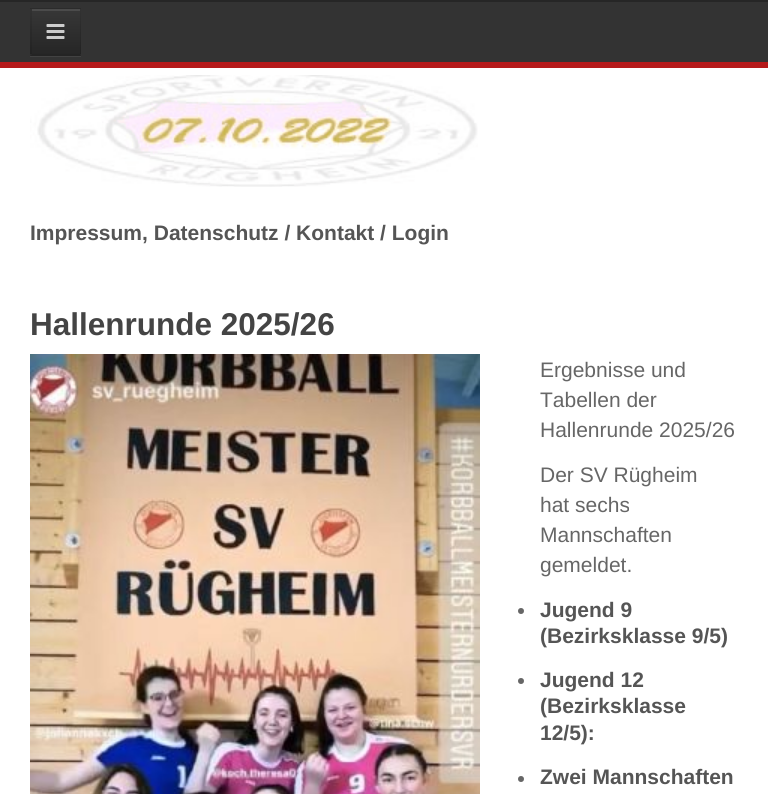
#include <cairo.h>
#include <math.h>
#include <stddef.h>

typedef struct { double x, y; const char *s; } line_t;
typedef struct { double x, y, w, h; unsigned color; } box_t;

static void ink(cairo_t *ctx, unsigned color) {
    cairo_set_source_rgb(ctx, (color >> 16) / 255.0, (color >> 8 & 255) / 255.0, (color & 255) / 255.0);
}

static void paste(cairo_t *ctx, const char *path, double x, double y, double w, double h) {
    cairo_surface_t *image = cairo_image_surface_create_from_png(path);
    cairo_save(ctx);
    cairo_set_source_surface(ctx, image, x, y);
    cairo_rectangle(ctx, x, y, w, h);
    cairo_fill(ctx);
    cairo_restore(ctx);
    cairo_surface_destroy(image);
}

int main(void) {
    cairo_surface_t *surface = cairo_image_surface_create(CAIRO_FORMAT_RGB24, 768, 794);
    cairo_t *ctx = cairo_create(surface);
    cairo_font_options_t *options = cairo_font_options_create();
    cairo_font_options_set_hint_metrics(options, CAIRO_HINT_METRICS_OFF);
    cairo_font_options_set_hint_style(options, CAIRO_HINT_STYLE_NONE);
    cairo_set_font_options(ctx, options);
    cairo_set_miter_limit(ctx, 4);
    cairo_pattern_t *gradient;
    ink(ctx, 0xFFFFFF);
    cairo_paint(ctx);
    {
        static const box_t items[] = {
            {0, 2, 768, 60, 0x333333},
            {0, 0, 768, 2, 0x262626},
            {0, 62, 768, 6, 0xB51A1B},
            {30, 56, 51, 1, 0x424242},
            {30, 8, 51, 48, 0x303030},
        };
        for (size_t i = 0; i < sizeof items / sizeof *items; i++) {
            ink(ctx, items[i].color);
            cairo_rectangle(ctx, items[i].x, items[i].y, items[i].w, items[i].h);
            cairo_fill(ctx);
        }
    }
    gradient = cairo_pattern_create_linear(56, 9, 56, 54);
    cairo_pattern_add_color_stop_rgba(gradient, 0, 0.216, 0.216, 0.216, 1);
    cairo_pattern_add_color_stop_rgba(gradient, 1, 0.149, 0.149, 0.149, 1);
    cairo_set_source(ctx, gradient);
    cairo_pattern_destroy(gradient);
    cairo_rectangle(ctx, 30, 9, 51, 45);
    cairo_fill(ctx);
    ink(ctx, 0x4B4B4B);
    cairo_rectangle(ctx, 32, 9, 48, 2);
    cairo_fill(ctx);
    ink(ctx, 0x2B2B2B);
    cairo_new_path(ctx);
    cairo_move_to(ctx, 30, 8);
    cairo_line_to(ctx, 81, 8);
    cairo_line_to(ctx, 80, 9);
    cairo_line_to(ctx, 32, 9);
    cairo_close_path(ctx);
    cairo_fill(ctx);
    cairo_set_source_rgba(ctx, 0, 0, 0, 0.1);
    cairo_new_path(ctx);
    cairo_move_to(ctx, 81, 8);
    cairo_line_to(ctx, 81, 56);
    cairo_line_to(ctx, 80, 54);
    cairo_line_to(ctx, 80, 9);
    cairo_close_path(ctx);
    cairo_fill(ctx);
    ink(ctx, 0x242424);
    cairo_new_path(ctx);
    cairo_move_to(ctx, 81, 56);
    cairo_line_to(ctx, 30, 56);
    cairo_line_to(ctx, 32, 54);
    cairo_line_to(ctx, 80, 54);
    cairo_close_path(ctx);
    cairo_fill(ctx);
    cairo_set_source_rgba(ctx, 0, 0, 0, 0.1);
    cairo_new_path(ctx);
    cairo_move_to(ctx, 30, 56);
    cairo_line_to(ctx, 30, 8);
    cairo_line_to(ctx, 32, 9);
    cairo_line_to(ctx, 32, 54);
    cairo_close_path(ctx);
    cairo_fill(ctx);
    paste(ctx, "media/1.png", 46, 24, 19, 15);
    paste(ctx, "media/2.png", 30, 75, 448, 112);
    cairo_select_font_face(ctx, "Liberation Sans", CAIRO_FONT_SLANT_NORMAL, CAIRO_FONT_WEIGHT_BOLD);
    cairo_set_font_size(ctx, 21);
    ink(ctx, 0x555555);
    cairo_move_to(ctx, 30, 240);
    cairo_show_text(ctx, "Impressum, Datenschutz / Kontakt / Login");
    cairo_set_font_size(ctx, 31.5);
    ink(ctx, 0x444444);
    cairo_move_to(ctx, 30, 335);
    cairo_show_text(ctx, "Hallenrunde 2025/26");
    paste(ctx, "media/3.png", 30, 354, 450, 440);
    cairo_select_font_face(ctx, "Liberation Sans", CAIRO_FONT_SLANT_NORMAL, CAIRO_FONT_WEIGHT_NORMAL);
    cairo_set_font_size(ctx, 21);
    ink(ctx, 0x666666);
    {
        static const line_t items[] = {
            {540, 377, "Ergebnisse und"},
            {540, 407, "Tabellen der"},
            {540, 437, "Hallenrunde 2025/26"},
            {540, 482, "Der SV Rügheim"},
            {540, 512, "hat sechs"},
            {540, 542, "Mannschaften"},
            {540, 572, "gemeldet."},
        };
        for (size_t i = 0; i < sizeof items / sizeof *items; i++) {
            cairo_move_to(ctx, items[i].x, items[i].y);
            cairo_show_text(ctx, items[i].s);
        }
    }
    cairo_new_path(ctx);
    cairo_arc(ctx, 521, 611, 3, 0, 2 * M_PI);
    cairo_fill(ctx);
    cairo_select_font_face(ctx, "Liberation Sans", CAIRO_FONT_SLANT_NORMAL, CAIRO_FONT_WEIGHT_BOLD);
    ink(ctx, 0x555555);
    cairo_move_to(ctx, 540, 617);
    cairo_show_text(ctx, "Jugend 9");
    cairo_move_to(ctx, 540, 643);
    cairo_show_text(ctx, "(Bezirksklasse 9/5)");
    ink(ctx, 0x666666);
    cairo_new_path(ctx);
    cairo_arc(ctx, 521, 681, 3, 0, 2 * M_PI);
    cairo_fill(ctx);
    ink(ctx, 0x555555);
    {
        static const line_t items[] = {
            {540, 687, "Jugend 12"},
            {540, 713, "(Bezirksklasse"},
            {540, 740, "12/5):"},
        };
        for (size_t i = 0; i < sizeof items / sizeof *items; i++) {
            cairo_move_to(ctx, items[i].x, items[i].y);
            cairo_show_text(ctx, items[i].s);
        }
    }
    ink(ctx, 0x666666);
    cairo_new_path(ctx);
    cairo_arc(ctx, 521, 779, 3, 0, 2 * M_PI);
    cairo_fill(ctx);
    ink(ctx, 0x555555);
    cairo_move_to(ctx, 540, 784);
    cairo_show_text(ctx, "Zwei Mannschaften");
    cairo_surface_write_to_png(surface, "image.png");
    cairo_font_options_destroy(options);
    cairo_destroy(ctx);
    cairo_surface_destroy(surface);
    return 0;
}
